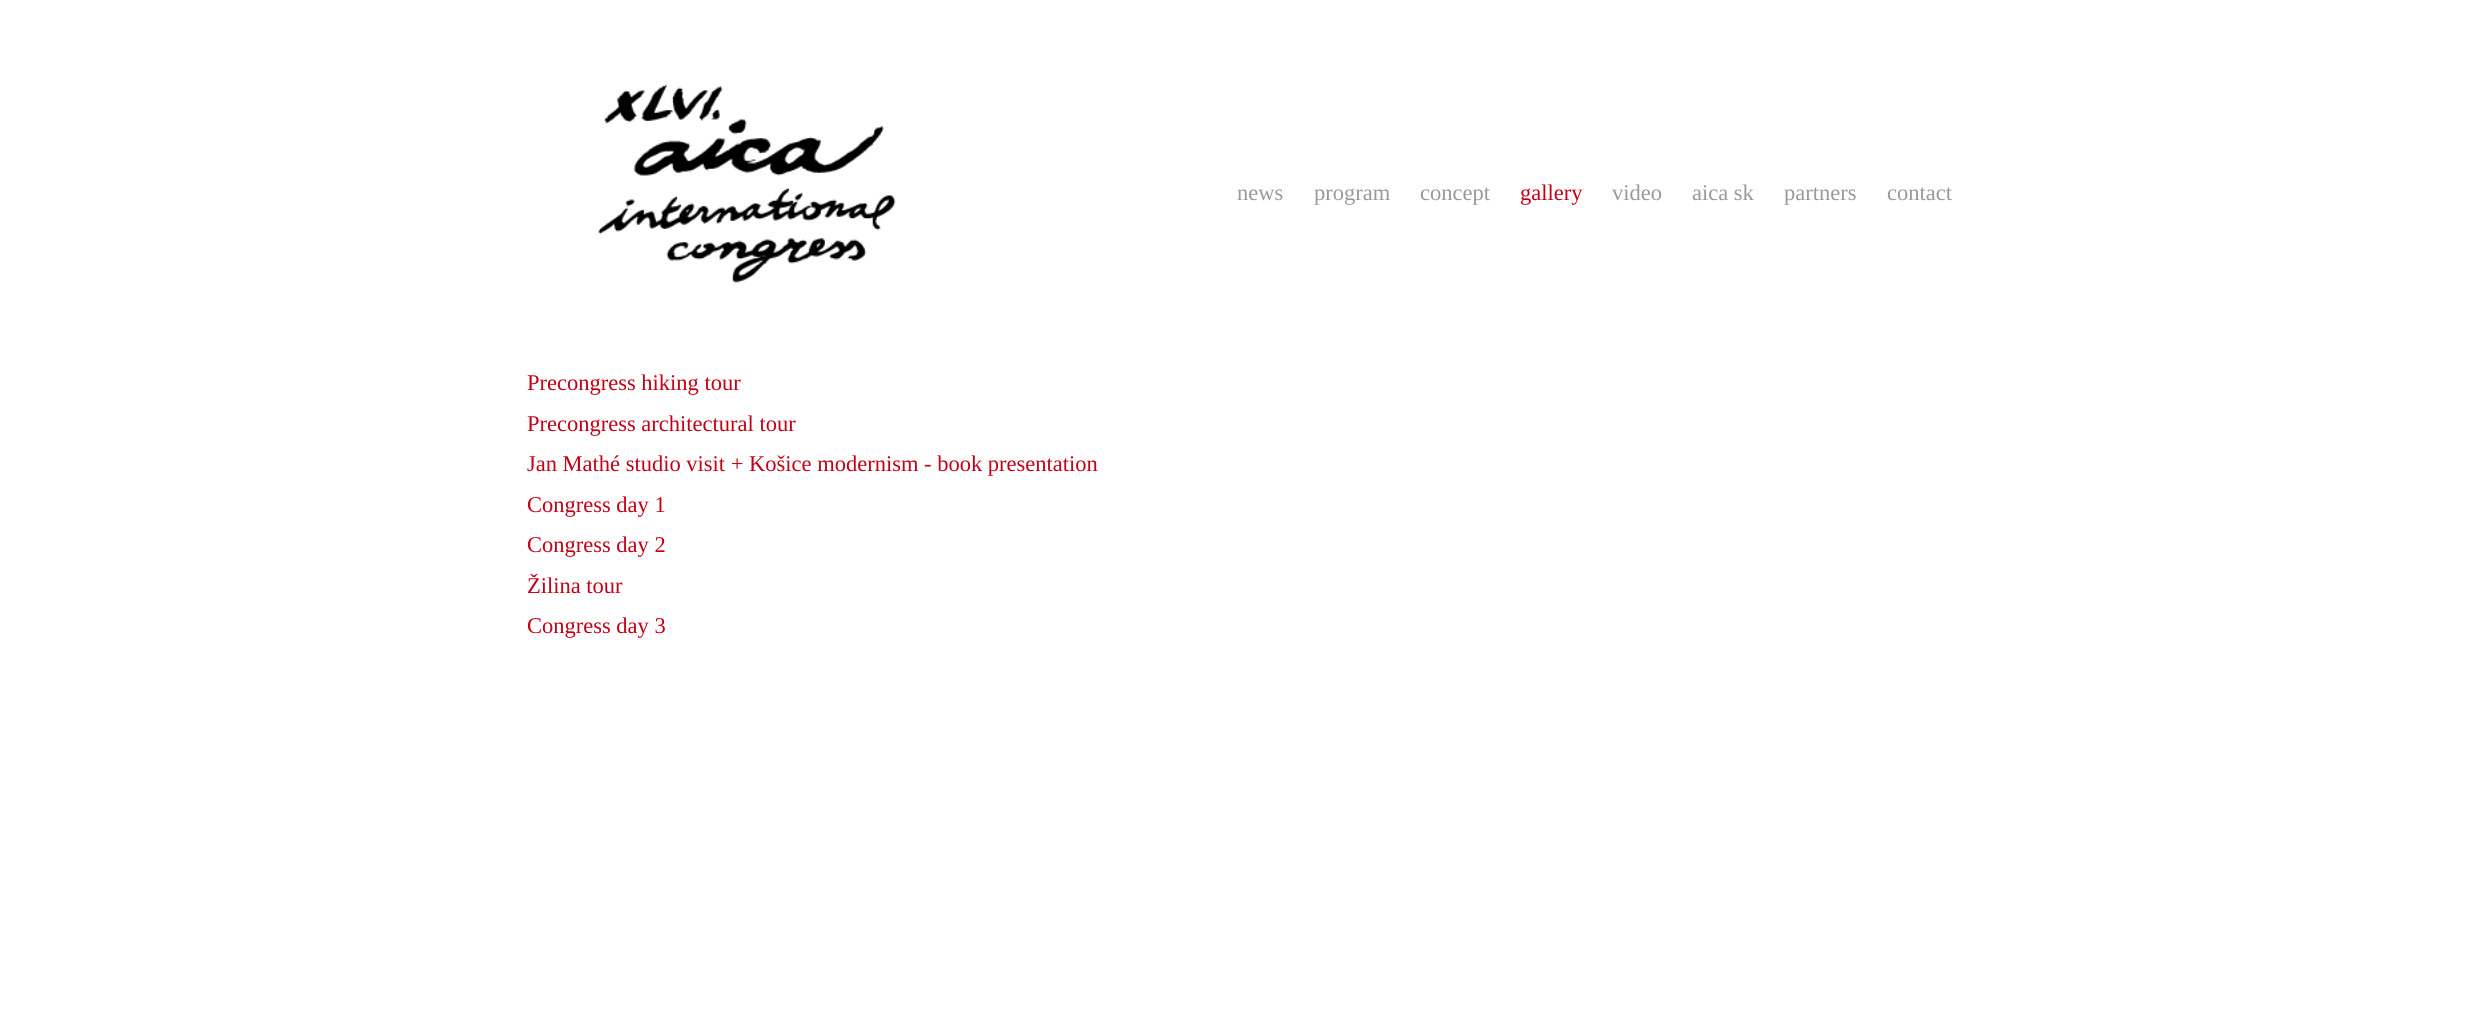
#include <cairo.h>
#include <math.h>
#include <stddef.h>

typedef struct { double x, y; const char *s; } line_t;

static void ink(cairo_t *ctx, unsigned color) {
    cairo_set_source_rgb(ctx, (color >> 16) / 255.0, (color >> 8 & 255) / 255.0, (color & 255) / 255.0);
}

static void paste(cairo_t *ctx, const char *path, double x, double y, double w, double h) {
    cairo_surface_t *image = cairo_image_surface_create_from_png(path);
    cairo_save(ctx);
    cairo_set_source_surface(ctx, image, x, y);
    cairo_rectangle(ctx, x, y, w, h);
    cairo_fill(ctx);
    cairo_restore(ctx);
    cairo_surface_destroy(image);
}

int main(void) {
    cairo_surface_t *surface = cairo_image_surface_create(CAIRO_FORMAT_RGB24, 2478, 1028);
    cairo_t *ctx = cairo_create(surface);
    cairo_font_options_t *options = cairo_font_options_create();
    cairo_font_options_set_hint_metrics(options, CAIRO_HINT_METRICS_OFF);
    cairo_font_options_set_hint_style(options, CAIRO_HINT_STYLE_NONE);
    cairo_set_font_options(ctx, options);
    cairo_set_miter_limit(ctx, 4);
    ink(ctx, 0xFFFFFF);
    cairo_paint(ctx);
    paste(ctx, "media/1.png", 598, 84, 298, 199);
    cairo_select_font_face(ctx, "Liberation Serif", CAIRO_FONT_SLANT_NORMAL, CAIRO_FONT_WEIGHT_NORMAL);
    cairo_set_font_size(ctx, 22.5);
    ink(ctx, 0x999999);
    {
        static const line_t items[] = {
            {1237, 200, "news"},
            {1314, 200, "program"},
            {1420, 200, "concept"},
        };
        for (size_t i = 0; i < sizeof items / sizeof *items; i++) {
            cairo_move_to(ctx, items[i].x, items[i].y);
            cairo_show_text(ctx, items[i].s);
        }
    }
    ink(ctx, 0xC30017);
    cairo_move_to(ctx, 1520, 200);
    cairo_show_text(ctx, "gallery");
    ink(ctx, 0x999999);
    {
        static const line_t items[] = {
            {1612, 200, "video"},
            {1692, 200, "aica sk"},
            {1784, 200, "partners"},
            {1887, 200, "contact"},
        };
        for (size_t i = 0; i < sizeof items / sizeof *items; i++) {
            cairo_move_to(ctx, items[i].x, items[i].y);
            cairo_show_text(ctx, items[i].s);
        }
    }
    ink(ctx, 0xC30017);
    {
        static const line_t items[] = {
            {527, 390, "Precongress hiking tour"},
            {527, 431, "Precongress architectural tour"},
            {527, 471, "Jan Mathé studio visit + Košice modernism - book presentation"},
            {527, 512, "Congress day 1"},
            {527, 552, "Congress day 2"},
            {527, 593, "Žilina tour"},
            {527, 633, "Congress day 3"},
        };
        for (size_t i = 0; i < sizeof items / sizeof *items; i++) {
            cairo_move_to(ctx, items[i].x, items[i].y);
            cairo_show_text(ctx, items[i].s);
        }
    }
    cairo_surface_write_to_png(surface, "image.png");
    cairo_font_options_destroy(options);
    cairo_destroy(ctx);
    cairo_surface_destroy(surface);
    return 0;
}
